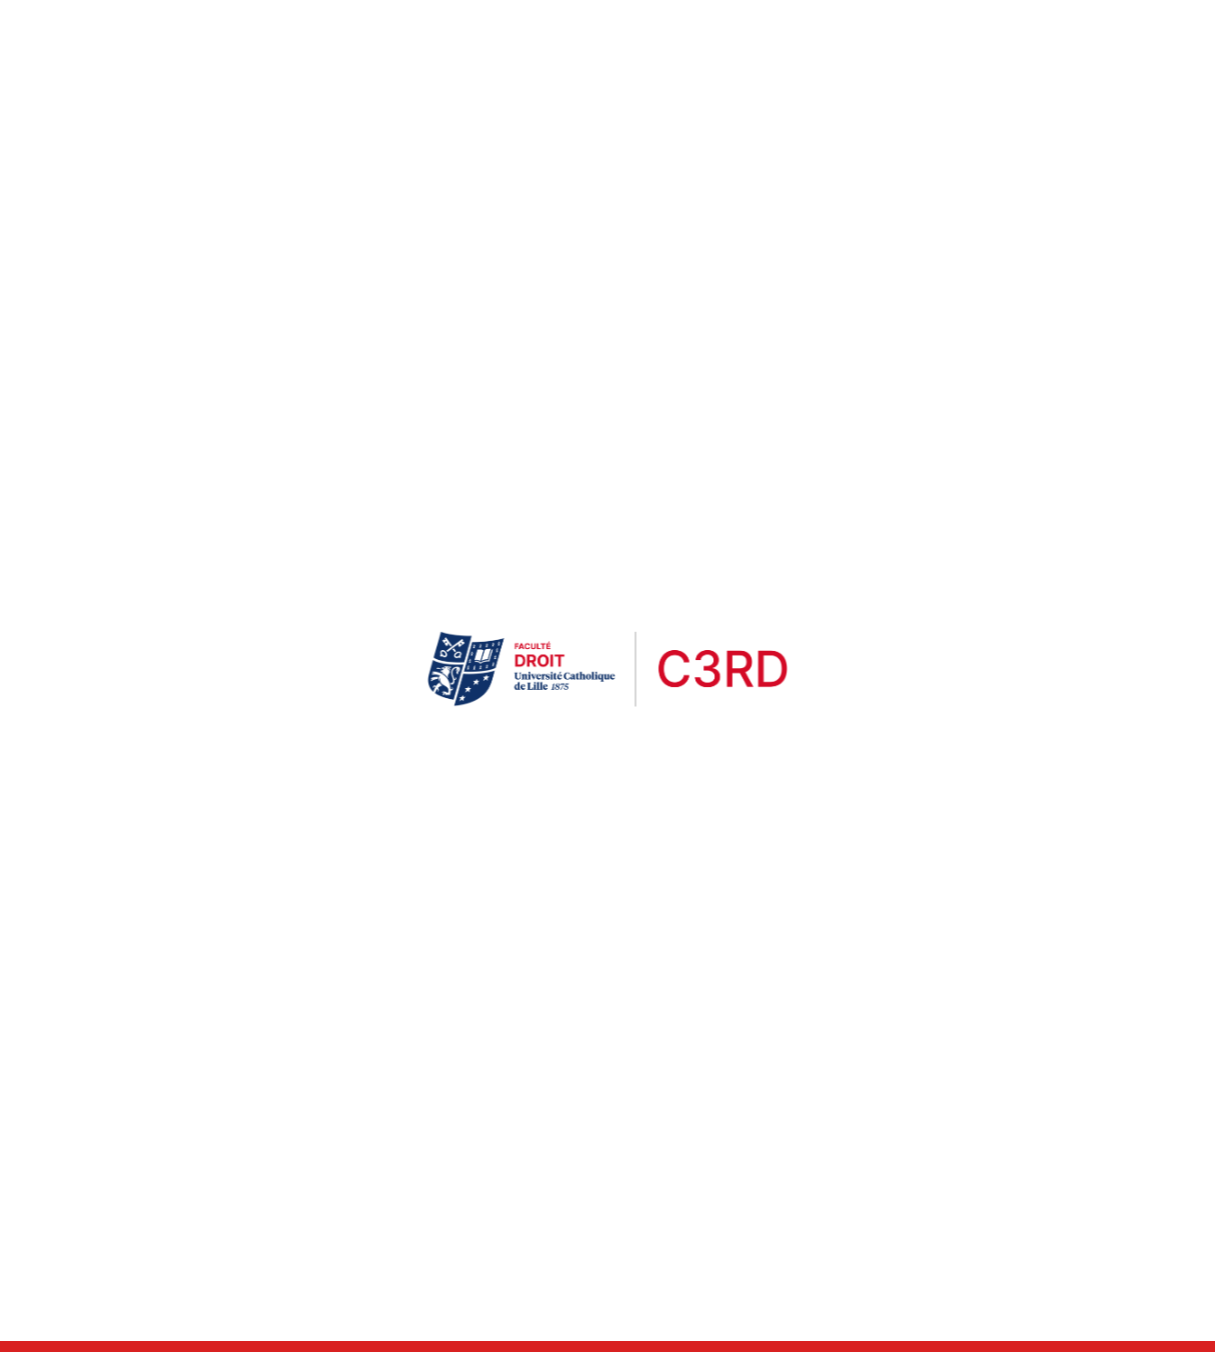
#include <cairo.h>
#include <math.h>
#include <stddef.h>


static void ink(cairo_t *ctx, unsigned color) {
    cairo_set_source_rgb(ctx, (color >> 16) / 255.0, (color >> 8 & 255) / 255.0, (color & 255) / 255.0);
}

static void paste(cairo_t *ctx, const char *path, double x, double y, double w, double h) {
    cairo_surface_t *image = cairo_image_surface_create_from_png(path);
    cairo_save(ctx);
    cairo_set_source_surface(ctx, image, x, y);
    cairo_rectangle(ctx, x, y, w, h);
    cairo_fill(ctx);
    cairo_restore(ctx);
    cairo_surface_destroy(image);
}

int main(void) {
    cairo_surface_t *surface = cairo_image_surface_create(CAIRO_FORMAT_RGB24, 1215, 1352);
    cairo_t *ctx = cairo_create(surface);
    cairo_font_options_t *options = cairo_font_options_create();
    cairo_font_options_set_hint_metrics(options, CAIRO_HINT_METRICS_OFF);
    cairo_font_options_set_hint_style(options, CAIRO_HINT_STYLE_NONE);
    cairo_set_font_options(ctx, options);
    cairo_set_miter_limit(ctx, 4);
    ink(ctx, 0xFFFFFF);
    cairo_paint(ctx);
    ink(ctx, 0xD92121);
    cairo_rectangle(ctx, 0, 1341, 1215, 11);
    cairo_fill(ctx);
    paste(ctx, "media/1.png", 427, 631, 361, 76);
    cairo_surface_write_to_png(surface, "image.png");
    cairo_font_options_destroy(options);
    cairo_destroy(ctx);
    cairo_surface_destroy(surface);
    return 0;
}
